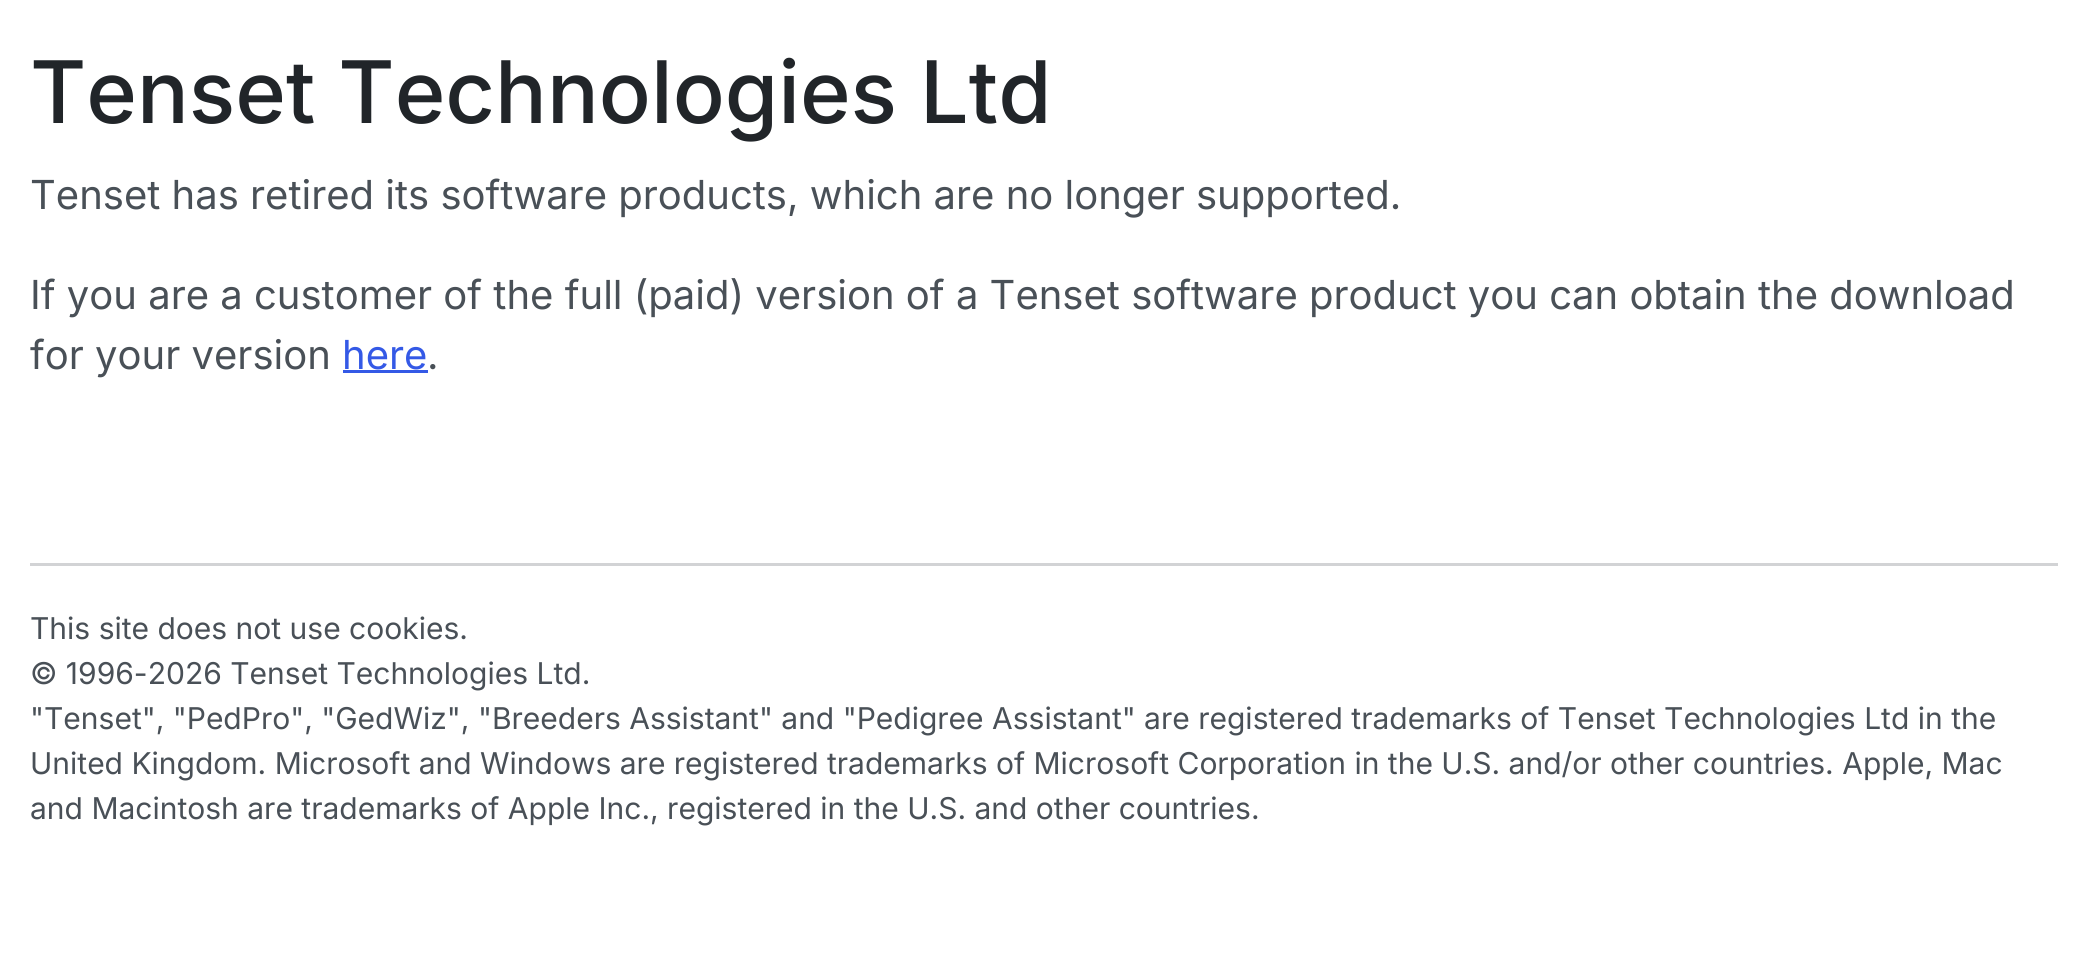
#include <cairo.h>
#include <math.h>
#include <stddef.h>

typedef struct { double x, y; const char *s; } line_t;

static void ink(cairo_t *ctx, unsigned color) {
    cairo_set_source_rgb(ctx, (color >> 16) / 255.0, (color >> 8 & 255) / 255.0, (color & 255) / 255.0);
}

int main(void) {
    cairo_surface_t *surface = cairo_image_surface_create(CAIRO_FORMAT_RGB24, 2087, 957);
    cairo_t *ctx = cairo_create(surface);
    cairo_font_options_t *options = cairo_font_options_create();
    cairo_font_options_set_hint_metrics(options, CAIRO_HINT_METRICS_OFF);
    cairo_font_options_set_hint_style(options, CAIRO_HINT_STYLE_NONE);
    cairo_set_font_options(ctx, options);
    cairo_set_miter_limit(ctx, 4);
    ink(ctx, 0xFFFFFF);
    cairo_paint(ctx);
    cairo_select_font_face(ctx, "Inter Medium", CAIRO_FONT_SLANT_NORMAL, CAIRO_FONT_WEIGHT_NORMAL);
    cairo_set_font_size(ctx, 86.25);
    ink(ctx, 0x212529);
    cairo_move_to(ctx, 30, 123);
    cairo_show_text(ctx, "Tenset Technologies Ltd");
    cairo_select_font_face(ctx, "Inter", CAIRO_FONT_SLANT_NORMAL, CAIRO_FONT_WEIGHT_NORMAL);
    cairo_set_font_size(ctx, 40);
    ink(ctx, 0x495057);
    {
        static const line_t items[] = {
            {30, 209, "Tenset has retired its software products, which are no longer supported."},
            {30, 309, "If you are a customer of the full (paid) version of a Tenset software product you can obtain the download"},
            {30, 369, "for your version"},
        };
        for (size_t i = 0; i < sizeof items / sizeof *items; i++) {
            cairo_move_to(ctx, items[i].x, items[i].y);
            cairo_show_text(ctx, items[i].s);
        }
    }
    ink(ctx, 0x3459E6);
    cairo_move_to(ctx, 342, 369);
    cairo_show_text(ctx, "here");
    cairo_rectangle(ctx, 343, 370, 85, 3);
    cairo_fill(ctx);
    ink(ctx, 0x495057);
    cairo_move_to(ctx, 427, 369);
    cairo_show_text(ctx, ".");
    ink(ctx, 0xD2D3D5);
    cairo_rectangle(ctx, 30, 563, 2028, 3);
    cairo_fill(ctx);
    cairo_set_font_size(ctx, 30);
    ink(ctx, 0x495057);
    {
        static const line_t items[] = {
            {30, 639, "This site does not use cookies."},
            {30, 684, "© 1996-2026 Tenset Technologies Ltd."},
            {30, 729, "\"Tenset\", \"PedPro\", \"GedWiz\", \"Breeders Assistant\" and \"Pedigree Assistant\" are registered trademarks of Tenset Technologies Ltd in the"},
            {30, 774, "United Kingdom. Microsoft and Windows are registered trademarks of Microsoft Corporation in the U.S. and/or other countries. Apple, Mac"},
            {30, 819, "and Macintosh are trademarks of Apple Inc., registered in the U.S. and other countries."},
        };
        for (size_t i = 0; i < sizeof items / sizeof *items; i++) {
            cairo_move_to(ctx, items[i].x, items[i].y);
            cairo_show_text(ctx, items[i].s);
        }
    }
    cairo_surface_write_to_png(surface, "image.png");
    cairo_font_options_destroy(options);
    cairo_destroy(ctx);
    cairo_surface_destroy(surface);
    return 0;
}
